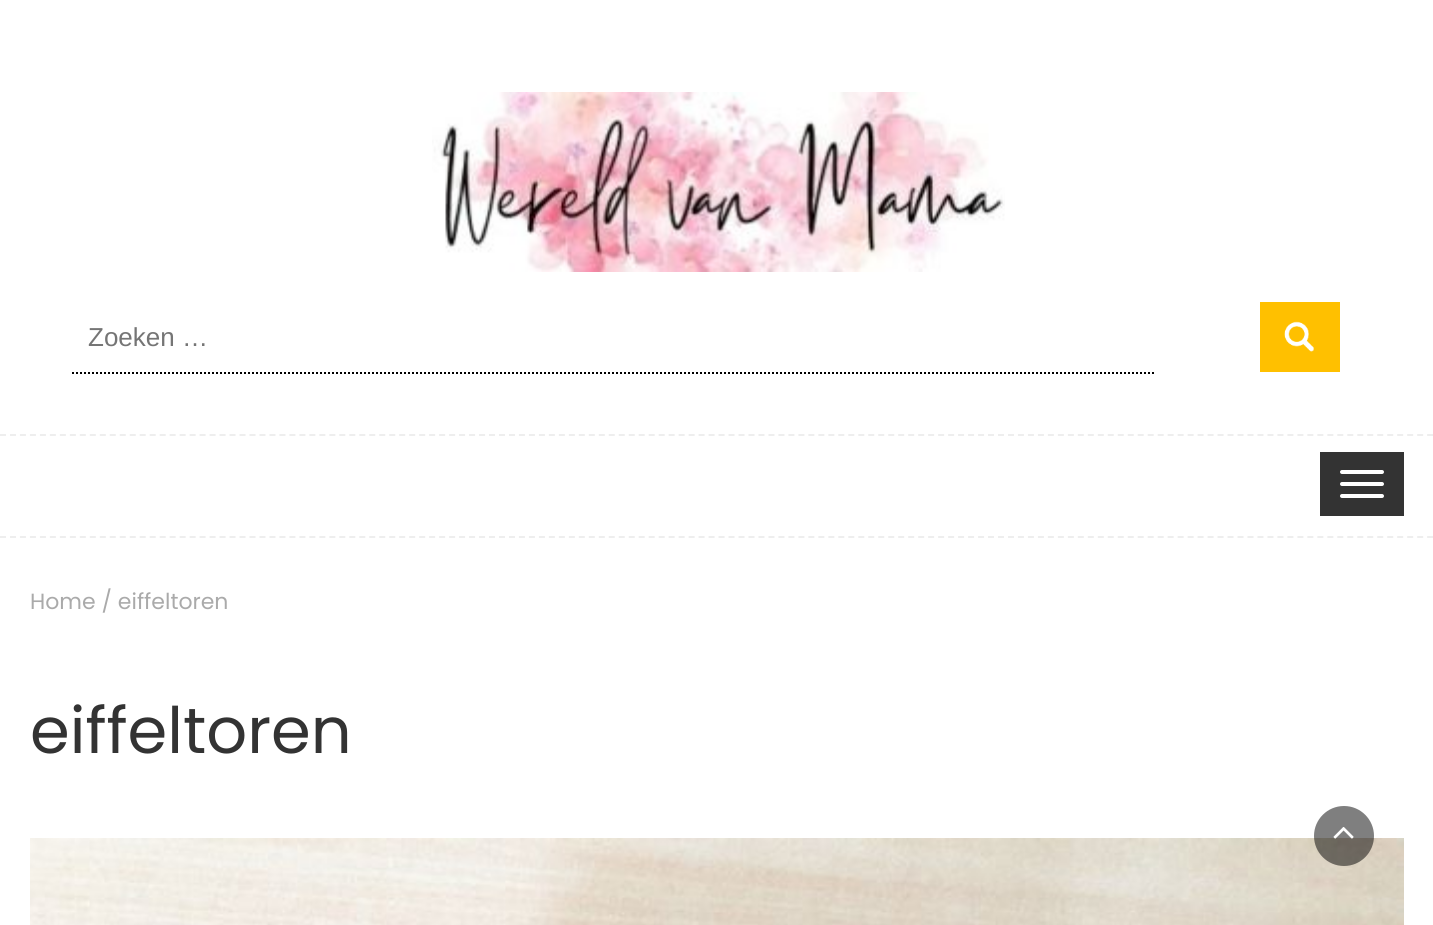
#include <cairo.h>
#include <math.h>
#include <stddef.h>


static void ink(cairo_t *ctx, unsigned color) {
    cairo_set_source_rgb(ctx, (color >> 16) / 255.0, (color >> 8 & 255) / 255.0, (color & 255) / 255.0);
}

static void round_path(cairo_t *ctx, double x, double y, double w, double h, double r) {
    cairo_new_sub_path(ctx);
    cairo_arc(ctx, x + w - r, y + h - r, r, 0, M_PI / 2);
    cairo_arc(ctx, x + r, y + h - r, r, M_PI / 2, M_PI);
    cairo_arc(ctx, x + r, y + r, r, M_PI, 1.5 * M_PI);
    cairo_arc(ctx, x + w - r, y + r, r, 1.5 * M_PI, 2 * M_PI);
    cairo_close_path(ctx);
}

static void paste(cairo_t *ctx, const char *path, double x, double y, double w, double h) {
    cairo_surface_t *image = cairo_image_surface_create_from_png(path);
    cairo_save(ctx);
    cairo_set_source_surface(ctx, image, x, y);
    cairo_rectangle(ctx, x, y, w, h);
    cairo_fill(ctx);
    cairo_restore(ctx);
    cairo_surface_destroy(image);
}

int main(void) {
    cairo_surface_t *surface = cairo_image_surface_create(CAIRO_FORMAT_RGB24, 1433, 925);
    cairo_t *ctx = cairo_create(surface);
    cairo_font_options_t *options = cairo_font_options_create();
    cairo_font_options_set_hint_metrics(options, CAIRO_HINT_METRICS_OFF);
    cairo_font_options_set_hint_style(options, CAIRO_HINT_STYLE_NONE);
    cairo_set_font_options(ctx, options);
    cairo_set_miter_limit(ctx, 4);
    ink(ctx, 0xFFFFFF);
    cairo_paint(ctx);
    paste(ctx, "media/1.png", 432, 92, 573, 180);
    cairo_new_path(ctx);
    cairo_move_to(ctx, 72, 373);
    cairo_line_to(ctx, 1156, 373);
    ink(ctx, 0x000000);
    cairo_set_dash(ctx, (double[]){2, 2}, 2, 0);
    cairo_stroke(ctx);
    cairo_select_font_face(ctx, "Liberation Sans", CAIRO_FONT_SLANT_NORMAL, CAIRO_FONT_WEIGHT_NORMAL);
    cairo_set_font_size(ctx, 26);
    ink(ctx, 0x757575);
    cairo_move_to(ctx, 88, 346);
    cairo_show_text(ctx, "Zoeken …");
    ink(ctx, 0xFFC000);
    cairo_rectangle(ctx, 1260, 302, 80, 70);
    cairo_fill(ctx);
    paste(ctx, "media/2.png", 1284, 321, 30, 31);
    cairo_new_path(ctx);
    cairo_move_to(ctx, 0, 435);
    cairo_line_to(ctx, 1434, 435);
    ink(ctx, 0xEEEEEE);
    cairo_set_dash(ctx, (double[]){6, 3.98}, 2, 0);
    cairo_stroke(ctx);
    cairo_new_path(ctx);
    cairo_move_to(ctx, 0, 537);
    cairo_line_to(ctx, 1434, 537);
    cairo_stroke(ctx);
    ink(ctx, 0x333333);
    cairo_rectangle(ctx, 1320, 452, 84, 64);
    cairo_fill(ctx);
    ink(ctx, 0xFFFFFF);
    round_path(ctx, 1340, 470, 44, 4, 2);
    cairo_fill(ctx);
    round_path(ctx, 1340, 482, 44, 4, 2);
    cairo_fill(ctx);
    round_path(ctx, 1340, 494, 44, 4, 2);
    cairo_fill(ctx);
    cairo_select_font_face(ctx, "Poppins", CAIRO_FONT_SLANT_NORMAL, CAIRO_FONT_WEIGHT_NORMAL);
    cairo_set_font_size(ctx, 22);
    ink(ctx, 0xAAAAAA);
    cairo_move_to(ctx, 30, 609);
    cairo_show_text(ctx, "Home / eiffeltoren");
    cairo_set_font_size(ctx, 64);
    ink(ctx, 0x333333);
    cairo_move_to(ctx, 30, 753);
    cairo_show_text(ctx, "eiffeltoren");
    paste(ctx, "media/3.png", 30, 838, 1374, 87);
    cairo_set_source_rgba(ctx, 0, 0, 0, 0.5);
    cairo_arc(ctx, 1344, 836, 30, 0, 2 * M_PI);
    cairo_fill(ctx);
    paste(ctx, "media/4.png", 1333, 827, 21, 12);
    cairo_surface_write_to_png(surface, "image.png");
    cairo_font_options_destroy(options);
    cairo_destroy(ctx);
    cairo_surface_destroy(surface);
    return 0;
}
